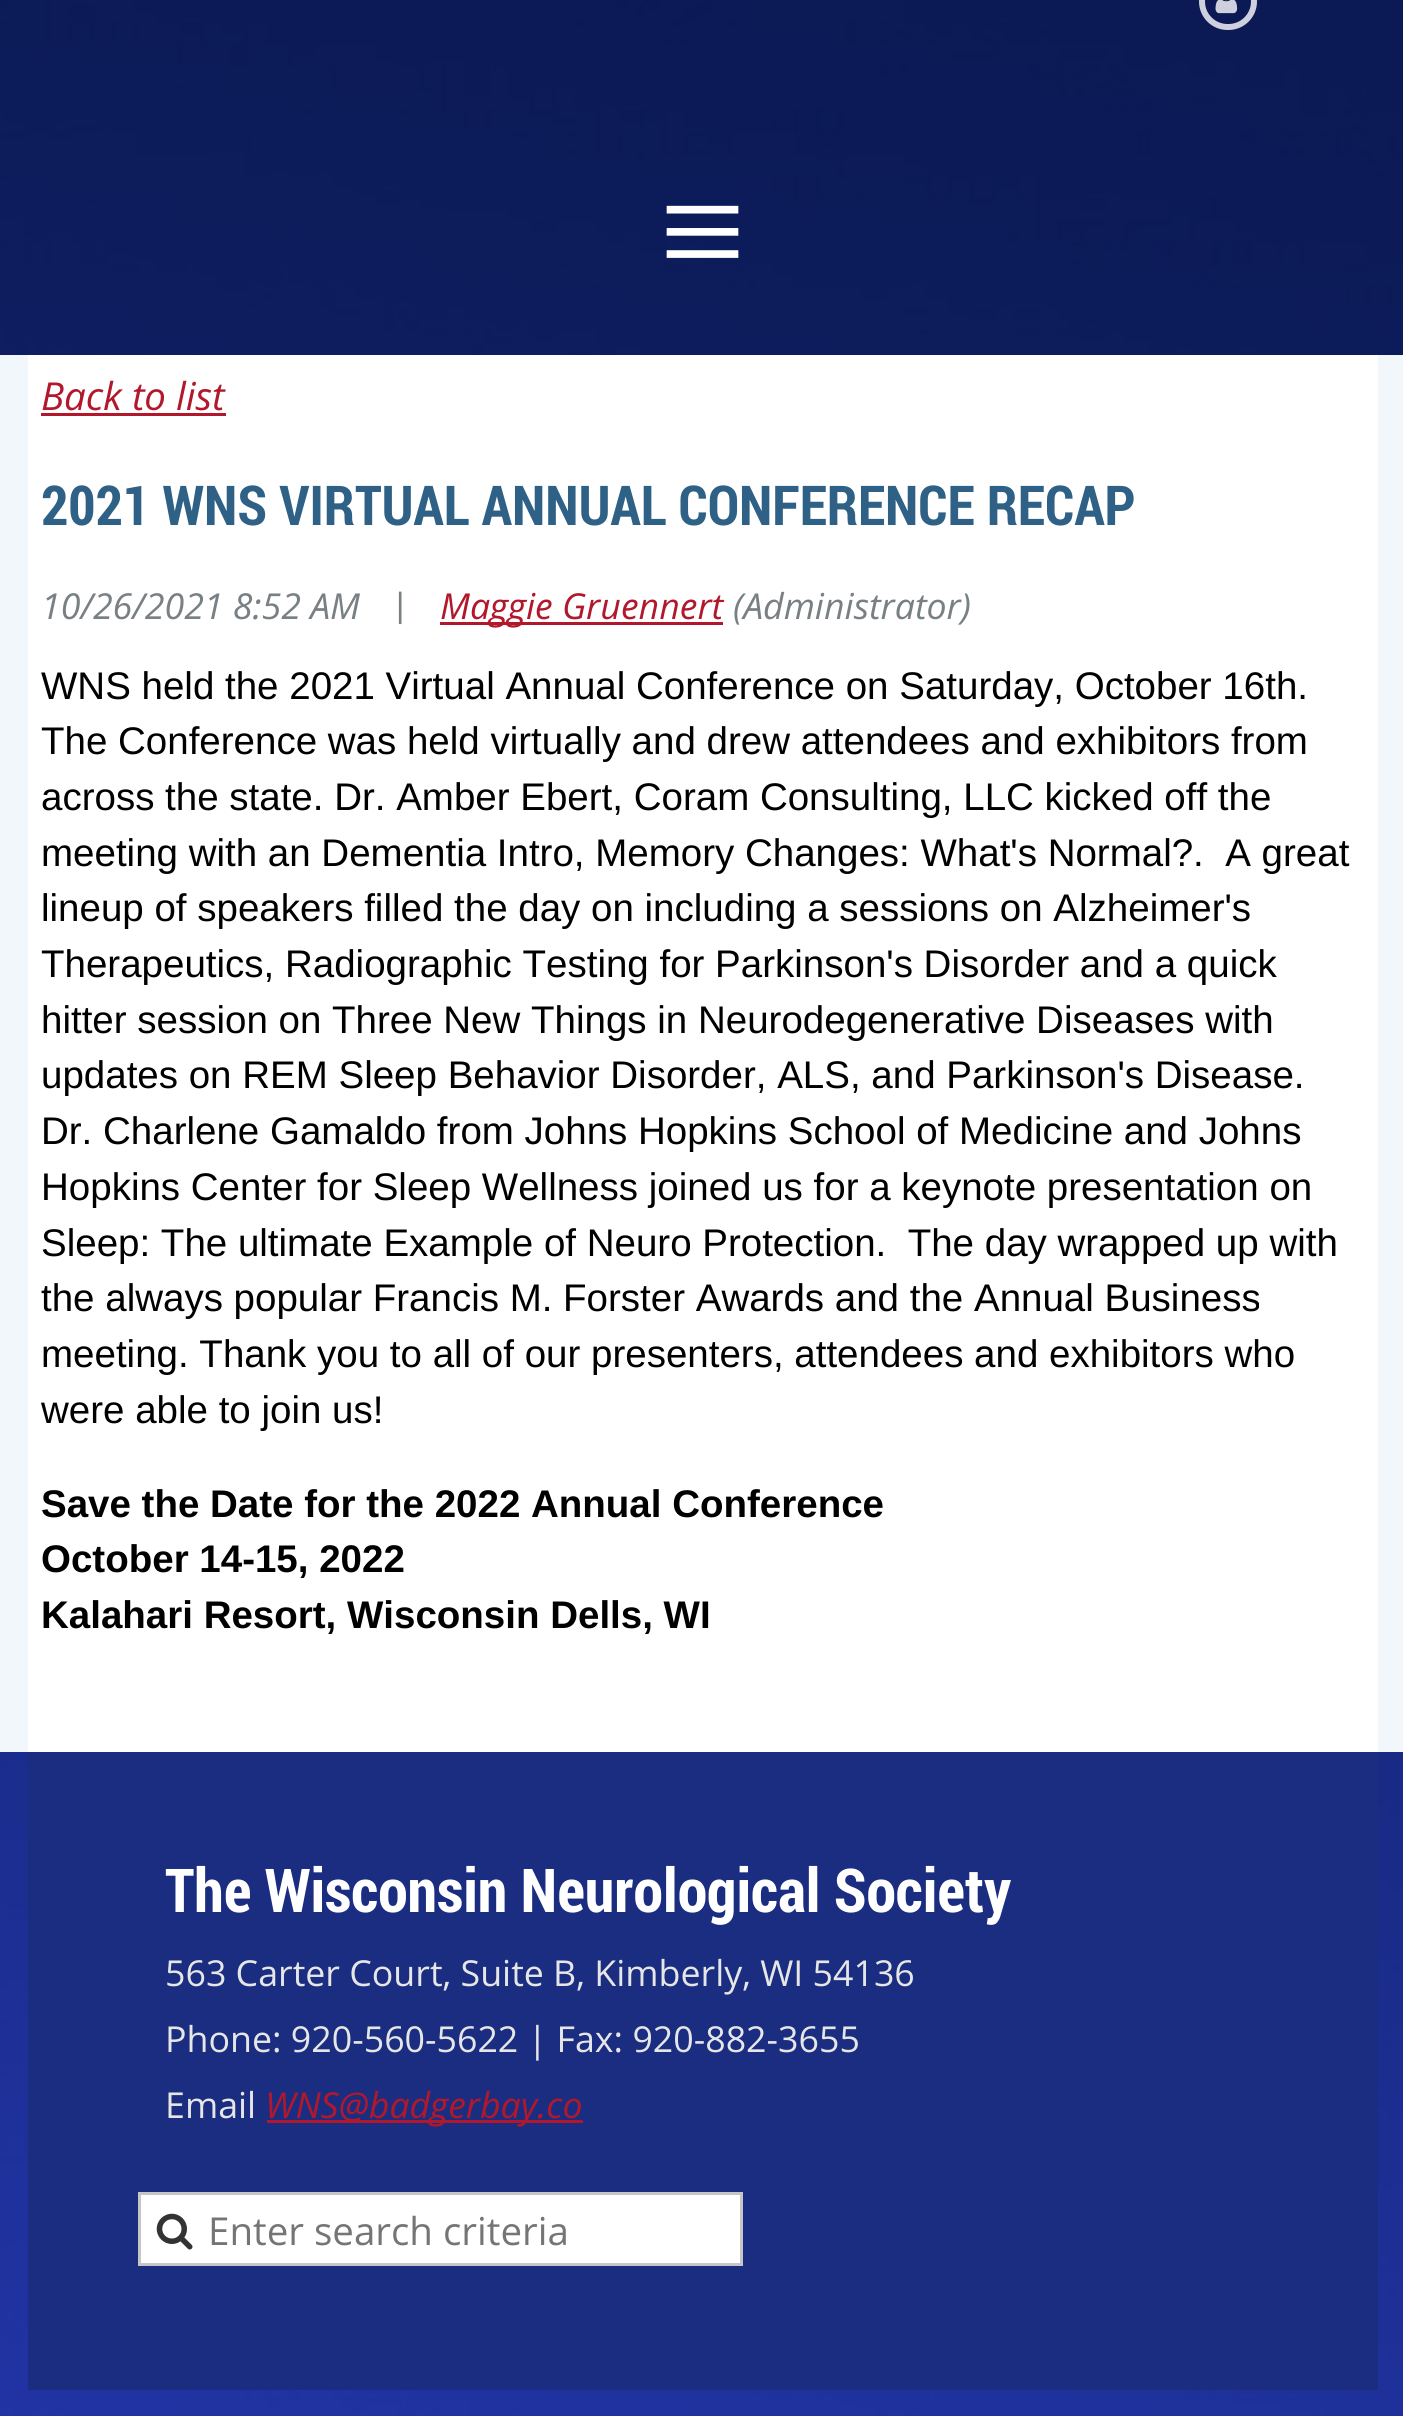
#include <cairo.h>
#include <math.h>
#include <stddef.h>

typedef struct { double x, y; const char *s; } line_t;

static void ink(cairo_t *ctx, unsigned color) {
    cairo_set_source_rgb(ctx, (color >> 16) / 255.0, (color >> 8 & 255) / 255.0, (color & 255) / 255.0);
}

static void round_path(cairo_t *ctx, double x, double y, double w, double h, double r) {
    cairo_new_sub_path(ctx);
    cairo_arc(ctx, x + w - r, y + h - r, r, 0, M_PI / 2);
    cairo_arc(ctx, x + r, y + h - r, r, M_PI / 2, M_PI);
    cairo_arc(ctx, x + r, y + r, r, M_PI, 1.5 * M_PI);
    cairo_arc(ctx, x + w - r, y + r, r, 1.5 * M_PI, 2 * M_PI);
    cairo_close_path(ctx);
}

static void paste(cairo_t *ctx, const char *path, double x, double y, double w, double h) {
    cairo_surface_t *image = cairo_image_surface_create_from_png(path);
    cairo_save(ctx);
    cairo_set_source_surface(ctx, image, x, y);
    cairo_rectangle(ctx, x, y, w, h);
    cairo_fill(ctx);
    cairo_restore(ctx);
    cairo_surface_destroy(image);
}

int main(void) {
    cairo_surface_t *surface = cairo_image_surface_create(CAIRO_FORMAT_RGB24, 1403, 2416);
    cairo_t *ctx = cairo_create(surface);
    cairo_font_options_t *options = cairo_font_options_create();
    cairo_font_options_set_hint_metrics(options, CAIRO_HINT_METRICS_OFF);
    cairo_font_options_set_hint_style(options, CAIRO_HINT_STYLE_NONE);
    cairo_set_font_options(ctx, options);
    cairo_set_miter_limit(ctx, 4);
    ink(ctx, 0xFFFFFF);
    cairo_paint(ctx);
    paste(ctx, "media/1.png", 0, 0, 1403, 2416);
    round_path(ctx, 1202, -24, 52, 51, 25.5);
    ink(ctx, 0xCED1DD);
    cairo_set_line_width(ctx, 6);
    cairo_stroke(ctx);
    paste(ctx, "media/2.png", 1215, 0, 23, 14);
    cairo_select_font_face(ctx, "Liberation Serif", CAIRO_FONT_SLANT_NORMAL, CAIRO_FONT_WEIGHT_NORMAL);
    cairo_set_font_size(ctx, 154);
    ink(ctx, 0xFFFFFF);
    cairo_move_to(ctx, 659, 283);
    cairo_show_text(ctx, "≡");
    ink(ctx, 0xF2F7FB);
    cairo_rectangle(ctx, 0, 355, 1403, 1397);
    cairo_fill(ctx);
    ink(ctx, 0xFFFFFF);
    cairo_rectangle(ctx, 28, 355, 1350, 1397);
    cairo_fill(ctx);
    cairo_select_font_face(ctx, "Open Sans", CAIRO_FONT_SLANT_ITALIC, CAIRO_FONT_WEIGHT_NORMAL);
    cairo_set_font_size(ctx, 38.5);
    ink(ctx, 0xB2182B);
    cairo_move_to(ctx, 41, 410);
    cairo_show_text(ctx, "Back to list");
    cairo_rectangle(ctx, 41, 413, 185, 3);
    cairo_fill(ctx);
    cairo_select_font_face(ctx, "Roboto Condensed", CAIRO_FONT_SLANT_NORMAL, CAIRO_FONT_WEIGHT_BOLD);
    cairo_set_font_size(ctx, 55);
    ink(ctx, 0x2E6185);
    cairo_move_to(ctx, 41, 525);
    cairo_show_text(ctx, "2021 WNS VIRTUAL ANNUAL CONFERENCE RECAP");
    cairo_select_font_face(ctx, "Open Sans", CAIRO_FONT_SLANT_ITALIC, CAIRO_FONT_WEIGHT_NORMAL);
    cairo_set_font_size(ctx, 35.75);
    ink(ctx, 0x798084);
    cairo_move_to(ctx, 41, 619);
    cairo_show_text(ctx, "10/26/2021 8:52 AM");
    cairo_select_font_face(ctx, "Roboto Condensed", CAIRO_FONT_SLANT_NORMAL, CAIRO_FONT_WEIGHT_NORMAL);
    cairo_set_font_size(ctx, 38.5);
    cairo_move_to(ctx, 396, 619);
    cairo_show_text(ctx, "|");
    ink(ctx, 0xB2182B);
    cairo_rectangle(ctx, 440, 622, 283, 3);
    cairo_fill(ctx);
    cairo_select_font_face(ctx, "Open Sans", CAIRO_FONT_SLANT_ITALIC, CAIRO_FONT_WEIGHT_NORMAL);
    cairo_set_font_size(ctx, 35.75);
    cairo_move_to(ctx, 440, 619);
    cairo_show_text(ctx, "Maggie Gruennert");
    ink(ctx, 0x798084);
    cairo_move_to(ctx, 733, 619);
    cairo_show_text(ctx, "(Administrator)");
    cairo_select_font_face(ctx, "Liberation Sans", CAIRO_FONT_SLANT_NORMAL, CAIRO_FONT_WEIGHT_NORMAL);
    cairo_set_font_size(ctx, 38.5);
    ink(ctx, 0x000000);
    {
        static const line_t items[] = {
            {41, 699, "WNS held the 2021 Virtual Annual Conference on Saturday, October 16th."},
            {41, 754, "The Conference was held virtually and drew attendees and exhibitors from"},
            {41, 810, "across the state. Dr. Amber Ebert, Coram Consulting, LLC kicked off the"},
            {41, 866, "meeting with an Dementia Intro, Memory Changes: What's Normal?.  A great"},
            {41, 921, "lineup of speakers filled the day on including a sessions on Alzheimer's"},
            {41, 977, "Therapeutics, Radiographic Testing for Parkinson's Disorder and a quick"},
            {41, 1033, "hitter session on Three New Things in Neurodegenerative Diseases with"},
            {41, 1088, "updates on REM Sleep Behavior Disorder, ALS, and Parkinson's Disease."},
            {41, 1144, "Dr. Charlene Gamaldo from Johns Hopkins School of Medicine and Johns"},
            {41, 1200, "Hopkins Center for Sleep Wellness joined us for a keynote presentation on"},
            {41, 1256, "Sleep: The ultimate Example of Neuro Protection.  The day wrapped up with"},
            {41, 1311, "the always popular Francis M. Forster Awards and the Annual Business"},
            {41, 1367, "meeting. Thank you to all of our presenters, attendees and exhibitors who"},
            {41, 1423, "were able to join us!"},
        };
        for (size_t i = 0; i < sizeof items / sizeof *items; i++) {
            cairo_move_to(ctx, items[i].x, items[i].y);
            cairo_show_text(ctx, items[i].s);
        }
    }
    cairo_select_font_face(ctx, "Liberation Sans", CAIRO_FONT_SLANT_NORMAL, CAIRO_FONT_WEIGHT_BOLD);
    {
        static const line_t items[] = {
            {41, 1517, "Save the Date for the 2022 Annual Conference"},
            {41, 1572, "October 14-15, 2022"},
            {41, 1628, "Kalahari Resort, Wisconsin Dells, WI"},
        };
        for (size_t i = 0; i < sizeof items / sizeof *items; i++) {
            cairo_move_to(ctx, items[i].x, items[i].y);
            cairo_show_text(ctx, items[i].s);
        }
    }
    ink(ctx, 0x1A2D81);
    cairo_rectangle(ctx, 28, 1752, 1350, 638);
    cairo_fill(ctx);
    cairo_select_font_face(ctx, "Roboto Condensed", CAIRO_FONT_SLANT_NORMAL, CAIRO_FONT_WEIGHT_BOLD);
    cairo_set_font_size(ctx, 60.5);
    ink(ctx, 0xFFFFFF);
    cairo_move_to(ctx, 165, 1912);
    cairo_show_text(ctx, "The Wisconsin Neurological Society");
    cairo_select_font_face(ctx, "Open Sans", CAIRO_FONT_SLANT_NORMAL, CAIRO_FONT_WEIGHT_NORMAL);
    cairo_set_font_size(ctx, 35.75);
    ink(ctx, 0xE6E6E6);
    {
        static const line_t items[] = {
            {165, 1986, "563 Carter Court, Suite B, Kimberly, WI 54136"},
            {165, 2052, "Phone: 920-560-5622 | Fax: 920-882-3655"},
            {165, 2118, "Email"},
        };
        for (size_t i = 0; i < sizeof items / sizeof *items; i++) {
            cairo_move_to(ctx, items[i].x, items[i].y);
            cairo_show_text(ctx, items[i].s);
        }
    }
    ink(ctx, 0xB2182B);
    cairo_rectangle(ctx, 267, 2120, 316, 3);
    cairo_fill(ctx);
    cairo_select_font_face(ctx, "Open Sans", CAIRO_FONT_SLANT_ITALIC, CAIRO_FONT_WEIGHT_NORMAL);
    cairo_move_to(ctx, 265, 2118);
    cairo_show_text(ctx, "WNS@badgerbay.co");
    ink(ctx, 0xFFFFFF);
    cairo_rectangle(ctx, 139.5, 2193.5, 602, 71);
    cairo_fill_preserve(ctx);
    ink(ctx, 0xC6C6C6);
    cairo_set_line_width(ctx, 3);
    cairo_stroke(ctx);
    paste(ctx, "media/3.png", 156, 2213, 37, 37);
    cairo_select_font_face(ctx, "Open Sans", CAIRO_FONT_SLANT_NORMAL, CAIRO_FONT_WEIGHT_NORMAL);
    cairo_set_font_size(ctx, 38.5);
    ink(ctx, 0x757575);
    cairo_move_to(ctx, 208, 2245);
    cairo_show_text(ctx, "Enter search criteria");
    cairo_surface_write_to_png(surface, "image.png");
    cairo_font_options_destroy(options);
    cairo_destroy(ctx);
    cairo_surface_destroy(surface);
    return 0;
}
